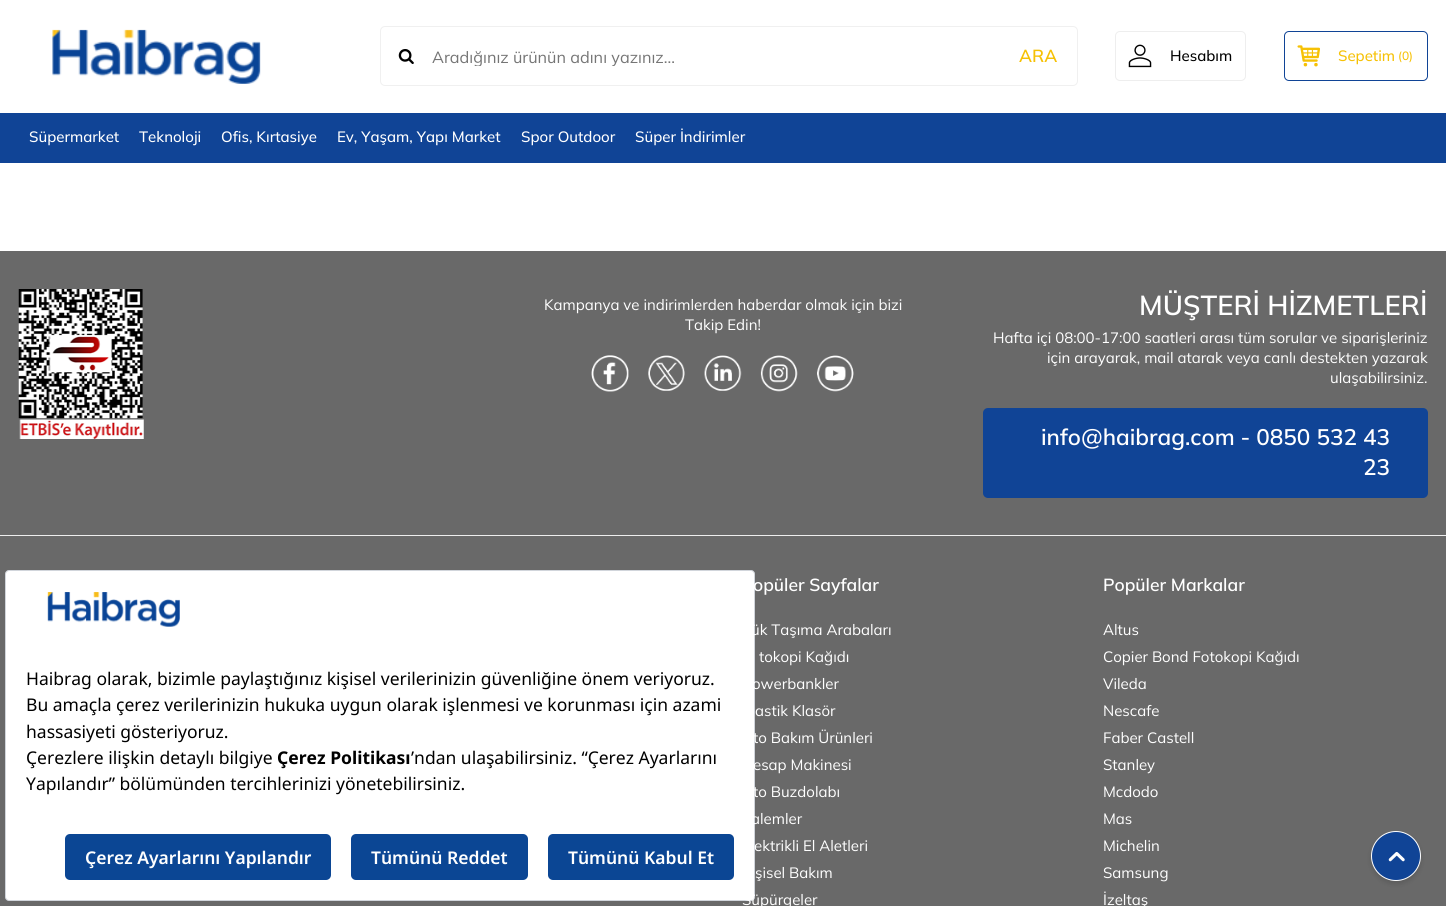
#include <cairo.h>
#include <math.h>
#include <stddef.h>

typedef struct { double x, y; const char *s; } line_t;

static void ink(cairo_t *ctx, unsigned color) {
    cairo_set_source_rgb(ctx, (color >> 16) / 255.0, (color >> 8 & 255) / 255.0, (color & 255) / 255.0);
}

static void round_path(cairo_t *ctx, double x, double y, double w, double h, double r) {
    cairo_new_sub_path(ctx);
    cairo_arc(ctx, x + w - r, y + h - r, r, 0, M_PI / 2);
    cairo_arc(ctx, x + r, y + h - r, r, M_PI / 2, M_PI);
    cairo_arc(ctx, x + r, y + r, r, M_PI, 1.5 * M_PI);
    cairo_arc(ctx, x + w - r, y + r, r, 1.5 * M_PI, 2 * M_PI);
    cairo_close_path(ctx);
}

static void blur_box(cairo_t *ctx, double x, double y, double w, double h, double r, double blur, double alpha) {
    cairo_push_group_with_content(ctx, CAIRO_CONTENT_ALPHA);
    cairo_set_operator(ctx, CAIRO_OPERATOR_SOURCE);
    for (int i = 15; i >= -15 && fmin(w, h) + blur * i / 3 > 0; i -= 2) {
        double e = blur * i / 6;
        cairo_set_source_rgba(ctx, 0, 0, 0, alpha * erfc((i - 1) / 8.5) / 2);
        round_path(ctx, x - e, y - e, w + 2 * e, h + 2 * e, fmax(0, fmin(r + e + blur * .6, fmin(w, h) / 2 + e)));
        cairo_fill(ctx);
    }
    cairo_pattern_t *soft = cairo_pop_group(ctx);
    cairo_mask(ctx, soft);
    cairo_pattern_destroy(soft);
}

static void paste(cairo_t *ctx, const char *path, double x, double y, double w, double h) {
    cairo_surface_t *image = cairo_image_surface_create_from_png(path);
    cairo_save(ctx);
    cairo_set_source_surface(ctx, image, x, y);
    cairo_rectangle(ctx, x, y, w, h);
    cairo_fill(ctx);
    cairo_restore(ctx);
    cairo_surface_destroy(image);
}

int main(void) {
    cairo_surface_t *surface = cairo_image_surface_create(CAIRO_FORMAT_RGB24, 1446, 906);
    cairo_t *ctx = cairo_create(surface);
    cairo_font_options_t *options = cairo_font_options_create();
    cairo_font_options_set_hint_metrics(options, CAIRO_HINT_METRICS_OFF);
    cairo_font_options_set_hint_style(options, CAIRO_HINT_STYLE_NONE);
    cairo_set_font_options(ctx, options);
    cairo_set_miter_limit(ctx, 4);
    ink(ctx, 0xFFFFFF);
    cairo_paint(ctx);
    paste(ctx, "media/1.png", 52, 29, 209, 55);
    round_path(ctx, 380.5, 26.5, 697, 59, 4.5);
    ink(ctx, 0xF0F0F0);
    cairo_set_line_width(ctx, 1);
    cairo_stroke(ctx);
    paste(ctx, "media/2.png", 398, 49, 16, 15);
    cairo_save(ctx);
    cairo_rectangle(ctx, 431, 46, 627, 20);
    cairo_clip(ctx);
    cairo_select_font_face(ctx, "Mulish", CAIRO_FONT_SLANT_NORMAL, CAIRO_FONT_WEIGHT_NORMAL);
    cairo_set_font_size(ctx, 16.25);
    ink(ctx, 0x757575);
    cairo_move_to(ctx, 432, 63);
    cairo_show_text(ctx, "Aradığınız ürünün adını yazınız...");
    cairo_restore(ctx);
    cairo_select_font_face(ctx, "Mulish SemiBold", CAIRO_FONT_SLANT_NORMAL, CAIRO_FONT_WEIGHT_NORMAL);
    cairo_set_font_size(ctx, 17.5);
    ink(ctx, 0xF6C105);
    cairo_move_to(ctx, 1019, 62);
    cairo_show_text(ctx, "ARA");
    round_path(ctx, 1115.5, 31.5, 130, 49, 4.5);
    ink(ctx, 0xEEEEEE);
    cairo_stroke(ctx);
    paste(ctx, "media/3.png", 1128, 44, 24, 24);
    cairo_select_font_face(ctx, "Mulish Medium", CAIRO_FONT_SLANT_NORMAL, CAIRO_FONT_WEIGHT_NORMAL);
    cairo_set_font_size(ctx, 15);
    ink(ctx, 0x000000);
    cairo_move_to(ctx, 1170, 61);
    cairo_show_text(ctx, "Hesabım");
    round_path(ctx, 1284.5, 31.5, 143, 49, 4.5);
    ink(ctx, 0x104496);
    cairo_stroke(ctx);
    paste(ctx, "media/4.png", 1297, 45, 23, 22);
    ink(ctx, 0xF6C105);
    cairo_move_to(ctx, 1338, 61);
    cairo_show_text(ctx, "Sepetim");
    cairo_set_font_size(ctx, 12);
    cairo_move_to(ctx, 1398, 60);
    cairo_show_text(ctx, "(0)");
    ink(ctx, 0x104496);
    cairo_rectangle(ctx, 0, 113, 1446, 50);
    cairo_fill(ctx);
    cairo_set_font_size(ctx, 15);
    ink(ctx, 0xFFFFFF);
    {
        static const line_t items[] = {
            {29, 142, "Süpermarket"},
            {139, 142, "Teknoloji"},
            {221, 142, "Ofis, Kırtasiye"},
            {337, 142, "Ev, Yaşam, Yapı Market"},
            {521, 142, "Spor Outdoor"},
            {635, 142, "Süper İndirimler"},
        };
        for (size_t i = 0; i < sizeof items / sizeof *items; i++) {
            cairo_move_to(ctx, items[i].x, items[i].y);
            cairo_show_text(ctx, items[i].s);
        }
    }
    ink(ctx, 0x696969);
    cairo_rectangle(ctx, 0, 251, 1446, 655);
    cairo_fill(ctx);
    ink(ctx, 0x000000);
    blur_box(ctx, 1371, 834, 50, 50, 25, 2.5, 0.13);
    ink(ctx, 0x104496);
    cairo_arc(ctx, 1396, 856, 24.5, 0, 2 * M_PI);
    cairo_fill_preserve(ctx);
    ink(ctx, 0xFFFFFF);
    cairo_stroke(ctx);
    paste(ctx, "media/5.png", 1388, 852, 17, 10);
    round_path(ctx, 5.5, 570.5, 749, 330, 3.5);
    cairo_fill_preserve(ctx);
    ink(ctx, 0xD1D5DB);
    cairo_stroke(ctx);
    paste(ctx, "media/6.png", 47, 592, 133, 35);
    cairo_select_font_face(ctx, "Noto Sans", CAIRO_FONT_SLANT_NORMAL, CAIRO_FONT_WEIGHT_NORMAL);
    cairo_set_font_size(ctx, 17.5);
    ink(ctx, 0x000000);
    {
        static const line_t items[] = {
            {26, 685, "Haibrag olarak, bizimle paylaştığınız kişisel verilerinizin güvenliğine önem veriyoruz."},
            {26, 711, "Bu amaçla çerez verilerinizin hukuka uygun olarak işlenmesi ve korunması için azami"},
            {26, 738, "hassasiyeti gösteriyoruz."},
            {26, 764, "Çerezlere ilişkin detaylı bilgiye"},
        };
        for (size_t i = 0; i < sizeof items / sizeof *items; i++) {
            cairo_move_to(ctx, items[i].x, items[i].y);
            cairo_show_text(ctx, items[i].s);
        }
    }
    cairo_select_font_face(ctx, "Noto Sans", CAIRO_FONT_SLANT_NORMAL, CAIRO_FONT_WEIGHT_BOLD);
    cairo_move_to(ctx, 277, 764);
    cairo_show_text(ctx, "Çerez Politikası");
    cairo_select_font_face(ctx, "Noto Sans", CAIRO_FONT_SLANT_NORMAL, CAIRO_FONT_WEIGHT_NORMAL);
    cairo_move_to(ctx, 411, 764);
    cairo_show_text(ctx, "’ndan ulaşabilirsiniz. “Çerez Ayarlarını");
    cairo_move_to(ctx, 26, 790);
    cairo_show_text(ctx, "Yapılandır” bölümünden tercihlerinizi yönetebilirsiniz.");
    ink(ctx, 0x0B4694);
    round_path(ctx, 65, 834, 266, 46, 5);
    cairo_fill(ctx);
    cairo_select_font_face(ctx, "Noto Sans SemiBold", CAIRO_FONT_SLANT_NORMAL, CAIRO_FONT_WEIGHT_NORMAL);
    ink(ctx, 0xFFFFFF);
    cairo_move_to(ctx, 85, 864);
    cairo_show_text(ctx, "Çerez Ayarlarını Yapılandır");
    ink(ctx, 0x0B4694);
    round_path(ctx, 351, 834, 177, 46, 5);
    cairo_fill(ctx);
    ink(ctx, 0xFFFFFF);
    cairo_move_to(ctx, 371, 864);
    cairo_show_text(ctx, "Tümünü Reddet");
    ink(ctx, 0x0B4694);
    round_path(ctx, 548, 834, 186, 46, 5);
    cairo_fill(ctx);
    ink(ctx, 0xFFFFFF);
    cairo_move_to(ctx, 568, 864);
    cairo_show_text(ctx, "Tümünü Kabul Et");
    ink(ctx, 0xEEEEEE);
    cairo_rectangle(ctx, 0, 535, 1446, 1);
    cairo_fill(ctx);
    paste(ctx, "media/7.png", 18, 289, 126, 150);
    cairo_select_font_face(ctx, "Mulish", CAIRO_FONT_SLANT_NORMAL, CAIRO_FONT_WEIGHT_NORMAL);
    cairo_set_font_size(ctx, 15);
    ink(ctx, 0xFFFFFF);
    cairo_move_to(ctx, 544, 310);
    cairo_show_text(ctx, "Kampanya ve indirimlerden haberdar olmak için bizi");
    cairo_move_to(ctx, 685, 330);
    cairo_show_text(ctx, "Takip Edin!");
    paste(ctx, "media/8.png", 591, 355, 38, 37);
    paste(ctx, "media/9.png", 648, 355, 37, 36);
    paste(ctx, "media/10.png", 704, 355, 38, 36);
    paste(ctx, "media/11.png", 760, 355, 38, 37);
    paste(ctx, "media/12.png", 817, 355, 37, 37);
    cairo_select_font_face(ctx, "Mulish SemiBold", CAIRO_FONT_SLANT_NORMAL, CAIRO_FONT_WEIGHT_NORMAL);
    cairo_set_font_size(ctx, 27.5);
    cairo_move_to(ctx, 1139, 315);
    cairo_show_text(ctx, "MÜŞTERİ HİZMETLERİ");
    cairo_select_font_face(ctx, "Mulish", CAIRO_FONT_SLANT_NORMAL, CAIRO_FONT_WEIGHT_NORMAL);
    cairo_set_font_size(ctx, 15);
    {
        static const line_t items[] = {
            {993, 343, "Hafta içi 08:00-17:00 saatleri arası tüm sorular ve siparişleriniz"},
            {1047, 363, "için arayarak, mail atarak veya canlı destekten yazarak"},
            {1330, 383, "ulaşabilirsiniz."},
        };
        for (size_t i = 0; i < sizeof items / sizeof *items; i++) {
            cairo_move_to(ctx, items[i].x, items[i].y);
            cairo_show_text(ctx, items[i].s);
        }
    }
    ink(ctx, 0x104496);
    round_path(ctx, 983, 408, 445, 90, 5);
    cairo_fill(ctx);
    cairo_select_font_face(ctx, "Mulish SemiBold", CAIRO_FONT_SLANT_NORMAL, CAIRO_FONT_WEIGHT_NORMAL);
    cairo_set_font_size(ctx, 22.5);
    ink(ctx, 0xFFFFFF);
    cairo_move_to(ctx, 1041, 445);
    cairo_show_text(ctx, "info@haibrag.com - 0850 532 43");
    cairo_move_to(ctx, 1363, 475);
    cairo_show_text(ctx, "23");
    cairo_set_font_size(ctx, 17.5);
    cairo_move_to(ctx, 753, 591);
    cairo_show_text(ctx, "opüler Sayfalar");
    cairo_select_font_face(ctx, "Mulish", CAIRO_FONT_SLANT_NORMAL, CAIRO_FONT_WEIGHT_NORMAL);
    cairo_set_font_size(ctx, 15);
    {
        static const line_t items[] = {
            {751, 635, "ük Taşıma Arabaları"},
            {759, 662, "tokopi Kağıdı"},
            {752, 689, "owerbankler"},
            {755, 716, "astik Klasör"},
            {753, 743, "to Bakım Ürünleri"},
            {753, 770, "esap Makinesi"},
            {753, 797, "to Buzdolabı"},
            {751, 824, "alemler"},
            {754, 851, "ektrikli El Aletleri"},
            {755, 878, "şisel Bakım"},
            {742, 905, "Süpürgeler"},
        };
        for (size_t i = 0; i < sizeof items / sizeof *items; i++) {
            cairo_move_to(ctx, items[i].x, items[i].y);
            cairo_show_text(ctx, items[i].s);
        }
    }
    cairo_select_font_face(ctx, "Mulish SemiBold", CAIRO_FONT_SLANT_NORMAL, CAIRO_FONT_WEIGHT_NORMAL);
    cairo_set_font_size(ctx, 17.5);
    cairo_move_to(ctx, 1103, 591);
    cairo_show_text(ctx, "Popüler Markalar");
    cairo_select_font_face(ctx, "Mulish", CAIRO_FONT_SLANT_NORMAL, CAIRO_FONT_WEIGHT_NORMAL);
    cairo_set_font_size(ctx, 15);
    {
        static const line_t items[] = {
            {1103, 635, "Altus"},
            {1103, 662, "Copier Bond Fotokopi Kağıdı"},
            {1103, 689, "Vileda"},
            {1103, 716, "Nescafe"},
            {1103, 743, "Faber Castell"},
            {1103, 770, "Stanley"},
            {1103, 797, "Mcdodo"},
            {1103, 824, "Mas"},
            {1103, 851, "Michelin"},
            {1103, 878, "Samsung"},
            {1103, 905, "İzeltaş"},
        };
        for (size_t i = 0; i < sizeof items / sizeof *items; i++) {
            cairo_move_to(ctx, items[i].x, items[i].y);
            cairo_show_text(ctx, items[i].s);
        }
    }
    cairo_surface_write_to_png(surface, "image.png");
    cairo_font_options_destroy(options);
    cairo_destroy(ctx);
    cairo_surface_destroy(surface);
    return 0;
}
